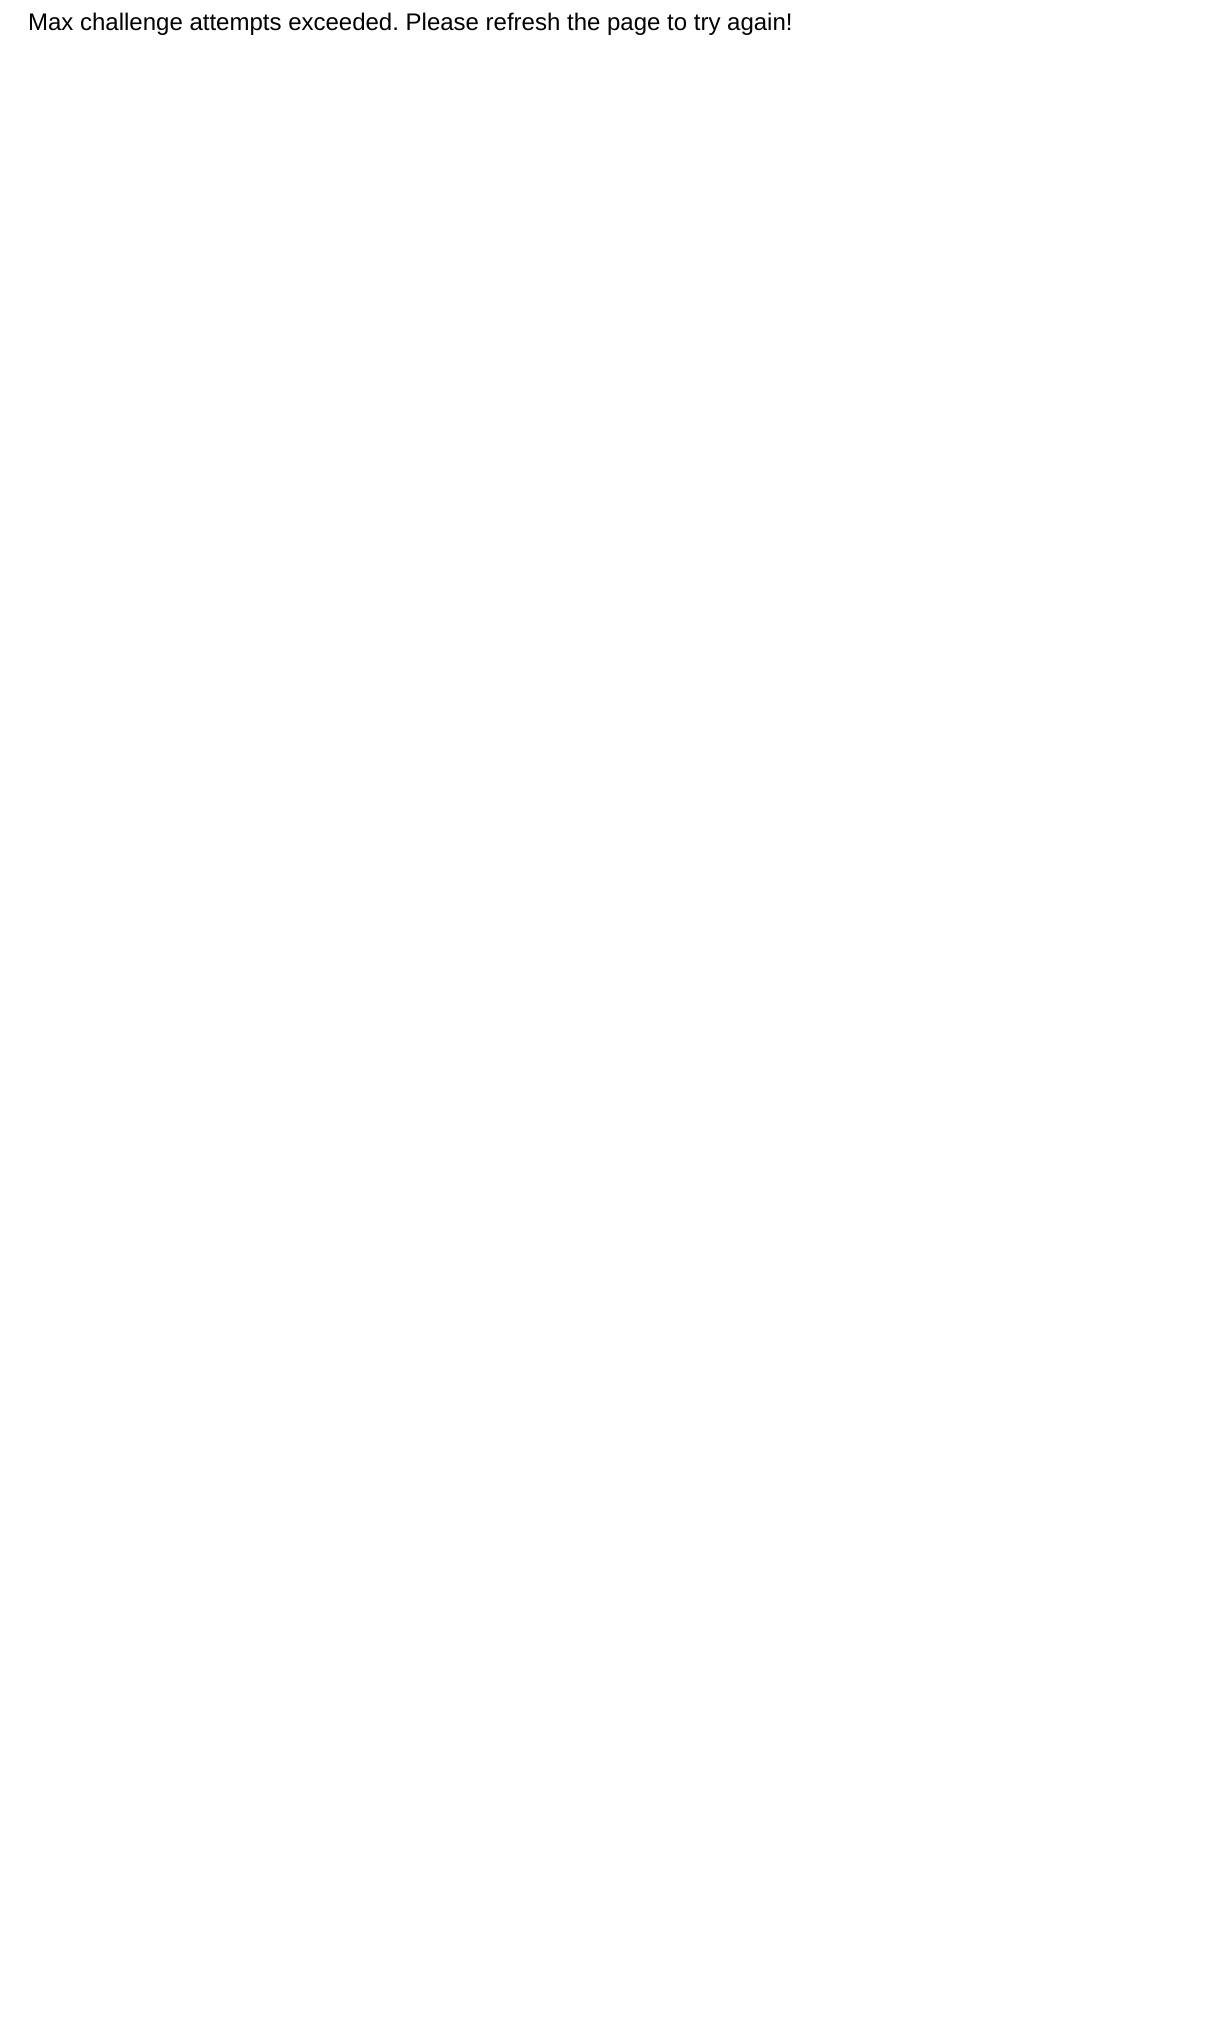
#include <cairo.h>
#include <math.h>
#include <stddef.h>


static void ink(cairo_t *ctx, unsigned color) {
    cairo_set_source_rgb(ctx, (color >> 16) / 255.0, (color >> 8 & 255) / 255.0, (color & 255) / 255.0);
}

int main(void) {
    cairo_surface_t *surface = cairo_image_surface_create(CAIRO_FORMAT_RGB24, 1217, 2029);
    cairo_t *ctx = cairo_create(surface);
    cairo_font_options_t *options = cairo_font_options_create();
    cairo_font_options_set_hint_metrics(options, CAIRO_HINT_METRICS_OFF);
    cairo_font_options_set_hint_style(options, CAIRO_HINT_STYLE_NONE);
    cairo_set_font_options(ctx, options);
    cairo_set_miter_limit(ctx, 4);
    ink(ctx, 0xFFFFFF);
    cairo_paint(ctx);
    cairo_select_font_face(ctx, "Liberation Sans", CAIRO_FONT_SLANT_NORMAL, CAIRO_FONT_WEIGHT_NORMAL);
    cairo_set_font_size(ctx, 24);
    ink(ctx, 0x000000);
    cairo_move_to(ctx, 28, 30);
    cairo_show_text(ctx, "Max challenge attempts exceeded. Please refresh the page to try again!");
    cairo_surface_write_to_png(surface, "image.png");
    cairo_font_options_destroy(options);
    cairo_destroy(ctx);
    cairo_surface_destroy(surface);
    return 0;
}
